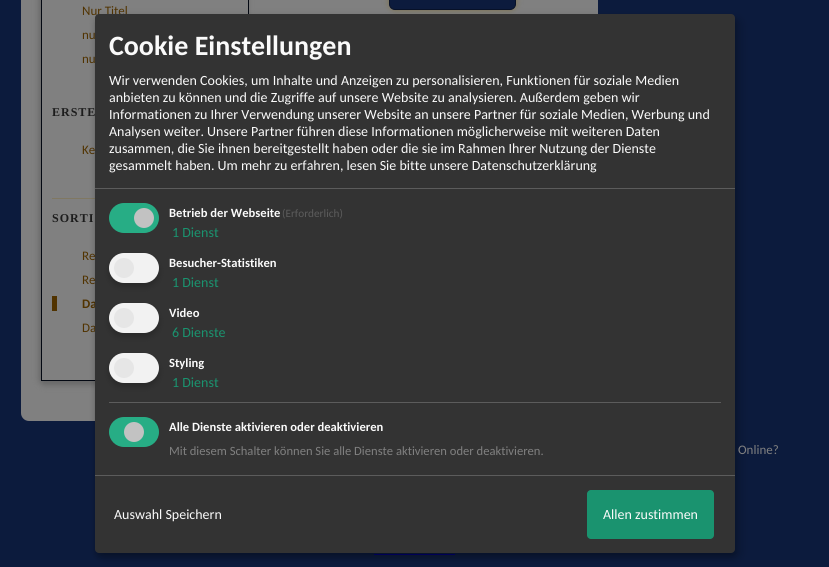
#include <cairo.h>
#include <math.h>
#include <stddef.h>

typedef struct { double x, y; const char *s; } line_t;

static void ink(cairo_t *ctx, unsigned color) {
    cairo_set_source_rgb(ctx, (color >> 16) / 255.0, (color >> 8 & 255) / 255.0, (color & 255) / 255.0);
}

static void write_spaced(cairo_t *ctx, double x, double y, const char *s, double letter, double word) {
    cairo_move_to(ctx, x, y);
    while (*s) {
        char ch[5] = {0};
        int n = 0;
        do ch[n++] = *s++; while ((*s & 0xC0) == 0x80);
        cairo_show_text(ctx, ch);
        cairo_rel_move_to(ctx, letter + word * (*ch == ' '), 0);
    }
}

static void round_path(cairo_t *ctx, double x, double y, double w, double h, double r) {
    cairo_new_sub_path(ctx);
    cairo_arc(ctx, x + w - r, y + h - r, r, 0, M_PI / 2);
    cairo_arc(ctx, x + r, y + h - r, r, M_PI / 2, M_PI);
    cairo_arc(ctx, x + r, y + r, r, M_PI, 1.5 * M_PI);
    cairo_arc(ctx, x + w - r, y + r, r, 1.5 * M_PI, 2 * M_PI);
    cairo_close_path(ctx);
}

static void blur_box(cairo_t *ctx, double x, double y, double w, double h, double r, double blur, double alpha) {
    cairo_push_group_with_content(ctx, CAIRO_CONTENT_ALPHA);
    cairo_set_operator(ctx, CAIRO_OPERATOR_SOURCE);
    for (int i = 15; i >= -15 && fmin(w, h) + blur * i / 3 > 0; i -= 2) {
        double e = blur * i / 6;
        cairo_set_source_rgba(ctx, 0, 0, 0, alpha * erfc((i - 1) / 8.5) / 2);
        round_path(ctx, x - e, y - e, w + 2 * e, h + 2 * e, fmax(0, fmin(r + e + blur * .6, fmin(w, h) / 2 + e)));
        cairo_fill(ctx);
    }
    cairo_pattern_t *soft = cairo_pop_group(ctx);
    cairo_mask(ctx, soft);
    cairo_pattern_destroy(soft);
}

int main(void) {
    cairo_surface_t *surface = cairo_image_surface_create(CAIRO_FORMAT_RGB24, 829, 567);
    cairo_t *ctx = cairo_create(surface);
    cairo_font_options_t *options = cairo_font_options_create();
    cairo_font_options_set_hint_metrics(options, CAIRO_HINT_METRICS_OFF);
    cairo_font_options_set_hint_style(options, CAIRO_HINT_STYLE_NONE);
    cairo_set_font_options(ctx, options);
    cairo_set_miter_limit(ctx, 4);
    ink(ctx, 0x0C1B3D);
    cairo_paint(ctx);
    ink(ctx, 0x808080);
    round_path(ctx, 21, -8, 577, 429, 8);
    cairo_fill(ctx);
    cairo_save(ctx);
    cairo_set_fill_rule(ctx, CAIRO_FILL_RULE_EVEN_ODD);
    cairo_new_path(ctx);
    cairo_move_to(ctx, 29, 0);
    cairo_line_to(ctx, 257, 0);
    cairo_line_to(ctx, 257, 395);
    cairo_line_to(ctx, 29, 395);
    cairo_close_path(ctx);
    cairo_move_to(ctx, 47, -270);
    cairo_line_to(ctx, 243, -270);
    cairo_curve_to(ctx, 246.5, -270, 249, -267.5, 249, -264);
    cairo_line_to(ctx, 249, 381);
    cairo_line_to(ctx, 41, 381);
    cairo_line_to(ctx, 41, -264);
    cairo_curve_to(ctx, 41, -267.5, 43.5, -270, 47, -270);
    cairo_close_path(ctx);
    cairo_clip(ctx);
    ink(ctx, 0x666666);
    blur_box(ctx, 39, -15, 208, 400, 6, 3, 1);
    cairo_restore(ctx);
    cairo_rectangle(ctx, 41.5, -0.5, 207, 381);
    ink(ctx, 0x030812);
    cairo_set_line_width(ctx, 1);
    cairo_stroke(ctx);
    cairo_select_font_face(ctx, "Carlito", CAIRO_FONT_SLANT_NORMAL, CAIRO_FONT_WEIGHT_NORMAL);
    cairo_set_font_size(ctx, 13);
    ink(ctx, 0x513300);
    {
        static const line_t items[] = {
            {82, 15, "Nur Titel"},
            {82, 39, "nu"},
            {82, 63, "nu"},
        };
        for (size_t i = 0; i < sizeof items / sizeof *items; i++) {
            cairo_move_to(ctx, items[i].x, items[i].y);
            cairo_show_text(ctx, items[i].s);
        }
    }
    cairo_select_font_face(ctx, "Liberation Serif", CAIRO_FONT_SLANT_NORMAL, CAIRO_FONT_WEIGHT_BOLD);
    cairo_set_font_size(ctx, 12);
    ink(ctx, 0x1C1C1C);
    write_spaced(ctx, 52, 116, "ERSTE", 1, 0);
    cairo_select_font_face(ctx, "Carlito", CAIRO_FONT_SLANT_NORMAL, CAIRO_FONT_WEIGHT_NORMAL);
    cairo_set_font_size(ctx, 13);
    ink(ctx, 0x513300);
    cairo_move_to(ctx, 82, 154);
    cairo_show_text(ctx, "Ke");
    ink(ctx, 0x807862);
    cairo_rectangle(ctx, 52, 198, 43, 1);
    cairo_fill(ctx);
    cairo_select_font_face(ctx, "Liberation Serif", CAIRO_FONT_SLANT_NORMAL, CAIRO_FONT_WEIGHT_BOLD);
    cairo_set_font_size(ctx, 12);
    ink(ctx, 0x1C1C1C);
    write_spaced(ctx, 52, 222, "SORTI", 1, 0);
    cairo_select_font_face(ctx, "Carlito", CAIRO_FONT_SLANT_NORMAL, CAIRO_FONT_WEIGHT_NORMAL);
    cairo_set_font_size(ctx, 13);
    ink(ctx, 0x513300);
    cairo_move_to(ctx, 82, 260);
    cairo_show_text(ctx, "Re");
    cairo_move_to(ctx, 82, 284);
    cairo_show_text(ctx, "Re");
    cairo_select_font_face(ctx, "Carlito", CAIRO_FONT_SLANT_NORMAL, CAIRO_FONT_WEIGHT_BOLD);
    cairo_move_to(ctx, 82, 308);
    cairo_show_text(ctx, "Da");
    cairo_rectangle(ctx, 52, 296, 5, 15);
    cairo_fill(ctx);
    cairo_select_font_face(ctx, "Carlito", CAIRO_FONT_SLANT_NORMAL, CAIRO_FONT_WEIGHT_NORMAL);
    cairo_move_to(ctx, 82, 332);
    cairo_show_text(ctx, "Da");
    ink(ctx, 0x7F7249);
    blur_box(ctx, 389, -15, 127, 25, 6, 3, 1);
    ink(ctx, 0x0C1B3D);
    round_path(ctx, 389.5, -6.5, 126, 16, 5.5);
    cairo_fill_preserve(ctx);
    ink(ctx, 0x071128);
    cairo_stroke(ctx);
    ink(ctx, 0x000077);
    cairo_rectangle(ctx, 374, 554, 81, 1);
    cairo_fill(ctx);
    ink(ctx, 0x000000);
    blur_box(ctx, 100, 19, 640, 539, 4, 5, 0.19);
    blur_box(ctx, 95, 18, 640, 539, 4, 3, 0.2);
    ink(ctx, 0x333333);
    round_path(ctx, 95, 14, 640, 539, 4);
    cairo_fill(ctx);
    ink(ctx, 0x5C5C5C);
    cairo_rectangle(ctx, 95, 188, 640, 1);
    cairo_fill(ctx);
    cairo_select_font_face(ctx, "Carlito", CAIRO_FONT_SLANT_NORMAL, CAIRO_FONT_WEIGHT_BOLD);
    cairo_set_font_size(ctx, 28);
    ink(ctx, 0xFAFAFA);
    cairo_move_to(ctx, 109, 55);
    cairo_show_text(ctx, "Cookie Einstellungen");
    cairo_select_font_face(ctx, "Carlito", CAIRO_FONT_SLANT_NORMAL, CAIRO_FONT_WEIGHT_NORMAL);
    cairo_set_font_size(ctx, 14);
    {
        static const line_t items[] = {
            {109, 85, "Wir verwenden Cookies, um Inhalte und Anzeigen zu personalisieren, Funktionen für soziale Medien"},
            {109, 102, "anbieten zu können und die Zugriffe auf unsere Website zu analysieren. Außerdem geben wir"},
            {109, 119, "Informationen zu Ihrer Verwendung unserer Website an unsere Partner für soziale Medien, Werbung und"},
            {109, 136, "Analysen weiter. Unsere Partner führen diese Informationen möglicherweise mit weiteren Daten"},
            {109, 153, "zusammen, die Sie ihnen bereitgestellt haben oder die sie im Rahmen Ihrer Nutzung der Dienste"},
            {109, 170, "gesammelt haben. Um mehr zu erfahren, lesen Sie bitte unsere Datenschutzerklärung"},
        };
        for (size_t i = 0; i < sizeof items / sizeof *items; i++) {
            cairo_move_to(ctx, items[i].x, items[i].y);
            cairo_show_text(ctx, items[i].s);
        }
    }
    ink(ctx, 0x27AD85);
    round_path(ctx, 109, 203, 50, 30, 15);
    cairo_fill(ctx);
    ink(ctx, 0xC2C2C2);
    cairo_arc(ctx, 144, 218, 10, 0, 2 * M_PI);
    cairo_fill(ctx);
    cairo_select_font_face(ctx, "Carlito", CAIRO_FONT_SLANT_NORMAL, CAIRO_FONT_WEIGHT_BOLD);
    cairo_set_font_size(ctx, 12.6);
    ink(ctx, 0xFAFAFA);
    cairo_move_to(ctx, 169, 217);
    cairo_show_text(ctx, "Betrieb der Webseite");
    cairo_select_font_face(ctx, "Carlito", CAIRO_FONT_SLANT_NORMAL, CAIRO_FONT_WEIGHT_NORMAL);
    cairo_set_font_size(ctx, 11.25);
    ink(ctx, 0x5C5C5C);
    cairo_move_to(ctx, 282, 217);
    cairo_show_text(ctx, "(Erforderlich)");
    cairo_set_font_size(ctx, 14);
    ink(ctx, 0x1A936F);
    cairo_move_to(ctx, 172, 237);
    cairo_show_text(ctx, "1 Dienst");
    ink(ctx, 0x000000);
    blur_box(ctx, 109, 257, 50, 30, 15, 3, 0.2);
    ink(ctx, 0xF2F2F2);
    round_path(ctx, 109, 253, 50, 30, 15);
    cairo_fill(ctx);
    ink(ctx, 0xE6E6E6);
    cairo_arc(ctx, 124, 268, 10, 0, 2 * M_PI);
    cairo_fill(ctx);
    cairo_select_font_face(ctx, "Carlito", CAIRO_FONT_SLANT_NORMAL, CAIRO_FONT_WEIGHT_BOLD);
    cairo_set_font_size(ctx, 12.6);
    ink(ctx, 0xFAFAFA);
    cairo_move_to(ctx, 169, 267);
    cairo_show_text(ctx, "Besucher-Statistiken");
    cairo_select_font_face(ctx, "Carlito", CAIRO_FONT_SLANT_NORMAL, CAIRO_FONT_WEIGHT_NORMAL);
    cairo_set_font_size(ctx, 14);
    ink(ctx, 0x1A936F);
    cairo_move_to(ctx, 172, 287);
    cairo_show_text(ctx, "1 Dienst");
    ink(ctx, 0x000000);
    blur_box(ctx, 109, 307, 50, 30, 15, 3, 0.2);
    ink(ctx, 0xF2F2F2);
    round_path(ctx, 109, 303, 50, 30, 15);
    cairo_fill(ctx);
    ink(ctx, 0xE6E6E6);
    cairo_arc(ctx, 124, 318, 10, 0, 2 * M_PI);
    cairo_fill(ctx);
    cairo_select_font_face(ctx, "Carlito", CAIRO_FONT_SLANT_NORMAL, CAIRO_FONT_WEIGHT_BOLD);
    cairo_set_font_size(ctx, 12.6);
    ink(ctx, 0xFAFAFA);
    cairo_move_to(ctx, 169, 317);
    cairo_show_text(ctx, "Video");
    cairo_select_font_face(ctx, "Carlito", CAIRO_FONT_SLANT_NORMAL, CAIRO_FONT_WEIGHT_NORMAL);
    cairo_set_font_size(ctx, 14);
    ink(ctx, 0x1A936F);
    cairo_move_to(ctx, 172, 337);
    cairo_show_text(ctx, "6 Dienste");
    ink(ctx, 0x000000);
    blur_box(ctx, 109, 357, 50, 30, 15, 3, 0.2);
    ink(ctx, 0xF2F2F2);
    round_path(ctx, 109, 353, 50, 30, 15);
    cairo_fill(ctx);
    ink(ctx, 0xE6E6E6);
    cairo_arc(ctx, 124, 368, 10, 0, 2 * M_PI);
    cairo_fill(ctx);
    cairo_select_font_face(ctx, "Carlito", CAIRO_FONT_SLANT_NORMAL, CAIRO_FONT_WEIGHT_BOLD);
    cairo_set_font_size(ctx, 12.6);
    ink(ctx, 0xFAFAFA);
    cairo_move_to(ctx, 169, 367);
    cairo_show_text(ctx, "Styling");
    cairo_select_font_face(ctx, "Carlito", CAIRO_FONT_SLANT_NORMAL, CAIRO_FONT_WEIGHT_NORMAL);
    cairo_set_font_size(ctx, 14);
    ink(ctx, 0x1A936F);
    cairo_move_to(ctx, 172, 387);
    cairo_show_text(ctx, "1 Dienst");
    ink(ctx, 0x5C5C5C);
    cairo_rectangle(ctx, 109, 402, 612, 1);
    cairo_fill(ctx);
    ink(ctx, 0x27AD85);
    round_path(ctx, 109, 417, 50, 30, 15);
    cairo_fill(ctx);
    ink(ctx, 0xC2C2C2);
    cairo_arc(ctx, 134, 432, 10, 0, 2 * M_PI);
    cairo_fill(ctx);
    cairo_select_font_face(ctx, "Carlito", CAIRO_FONT_SLANT_NORMAL, CAIRO_FONT_WEIGHT_BOLD);
    cairo_set_font_size(ctx, 12.6);
    ink(ctx, 0xFAFAFA);
    cairo_move_to(ctx, 169, 431);
    cairo_show_text(ctx, "Alle Dienste aktivieren oder deaktivieren");
    cairo_select_font_face(ctx, "Carlito", CAIRO_FONT_SLANT_NORMAL, CAIRO_FONT_WEIGHT_NORMAL);
    ink(ctx, 0x808080);
    cairo_move_to(ctx, 169, 455);
    cairo_show_text(ctx, "Mit diesem Schalter können Sie alle Dienste aktivieren oder deaktivieren.");
    ink(ctx, 0x5C5C5C);
    cairo_rectangle(ctx, 95, 475, 640, 1);
    cairo_fill(ctx);
    cairo_set_font_size(ctx, 14);
    ink(ctx, 0xFAFAFA);
    cairo_move_to(ctx, 114, 519);
    cairo_show_text(ctx, "Auswahl Speichern");
    ink(ctx, 0x1A936F);
    round_path(ctx, 587, 490, 127, 49, 4);
    cairo_fill(ctx);
    ink(ctx, 0xFAFAFA);
    cairo_move_to(ctx, 603, 519);
    cairo_show_text(ctx, "Allen zustimmen");
    cairo_set_font_size(ctx, 13);
    ink(ctx, 0x808080);
    cairo_move_to(ctx, 738, 454);
    cairo_show_text(ctx, "Online?");
    cairo_surface_write_to_png(surface, "image.png");
    cairo_font_options_destroy(options);
    cairo_destroy(ctx);
    cairo_surface_destroy(surface);
    return 0;
}
